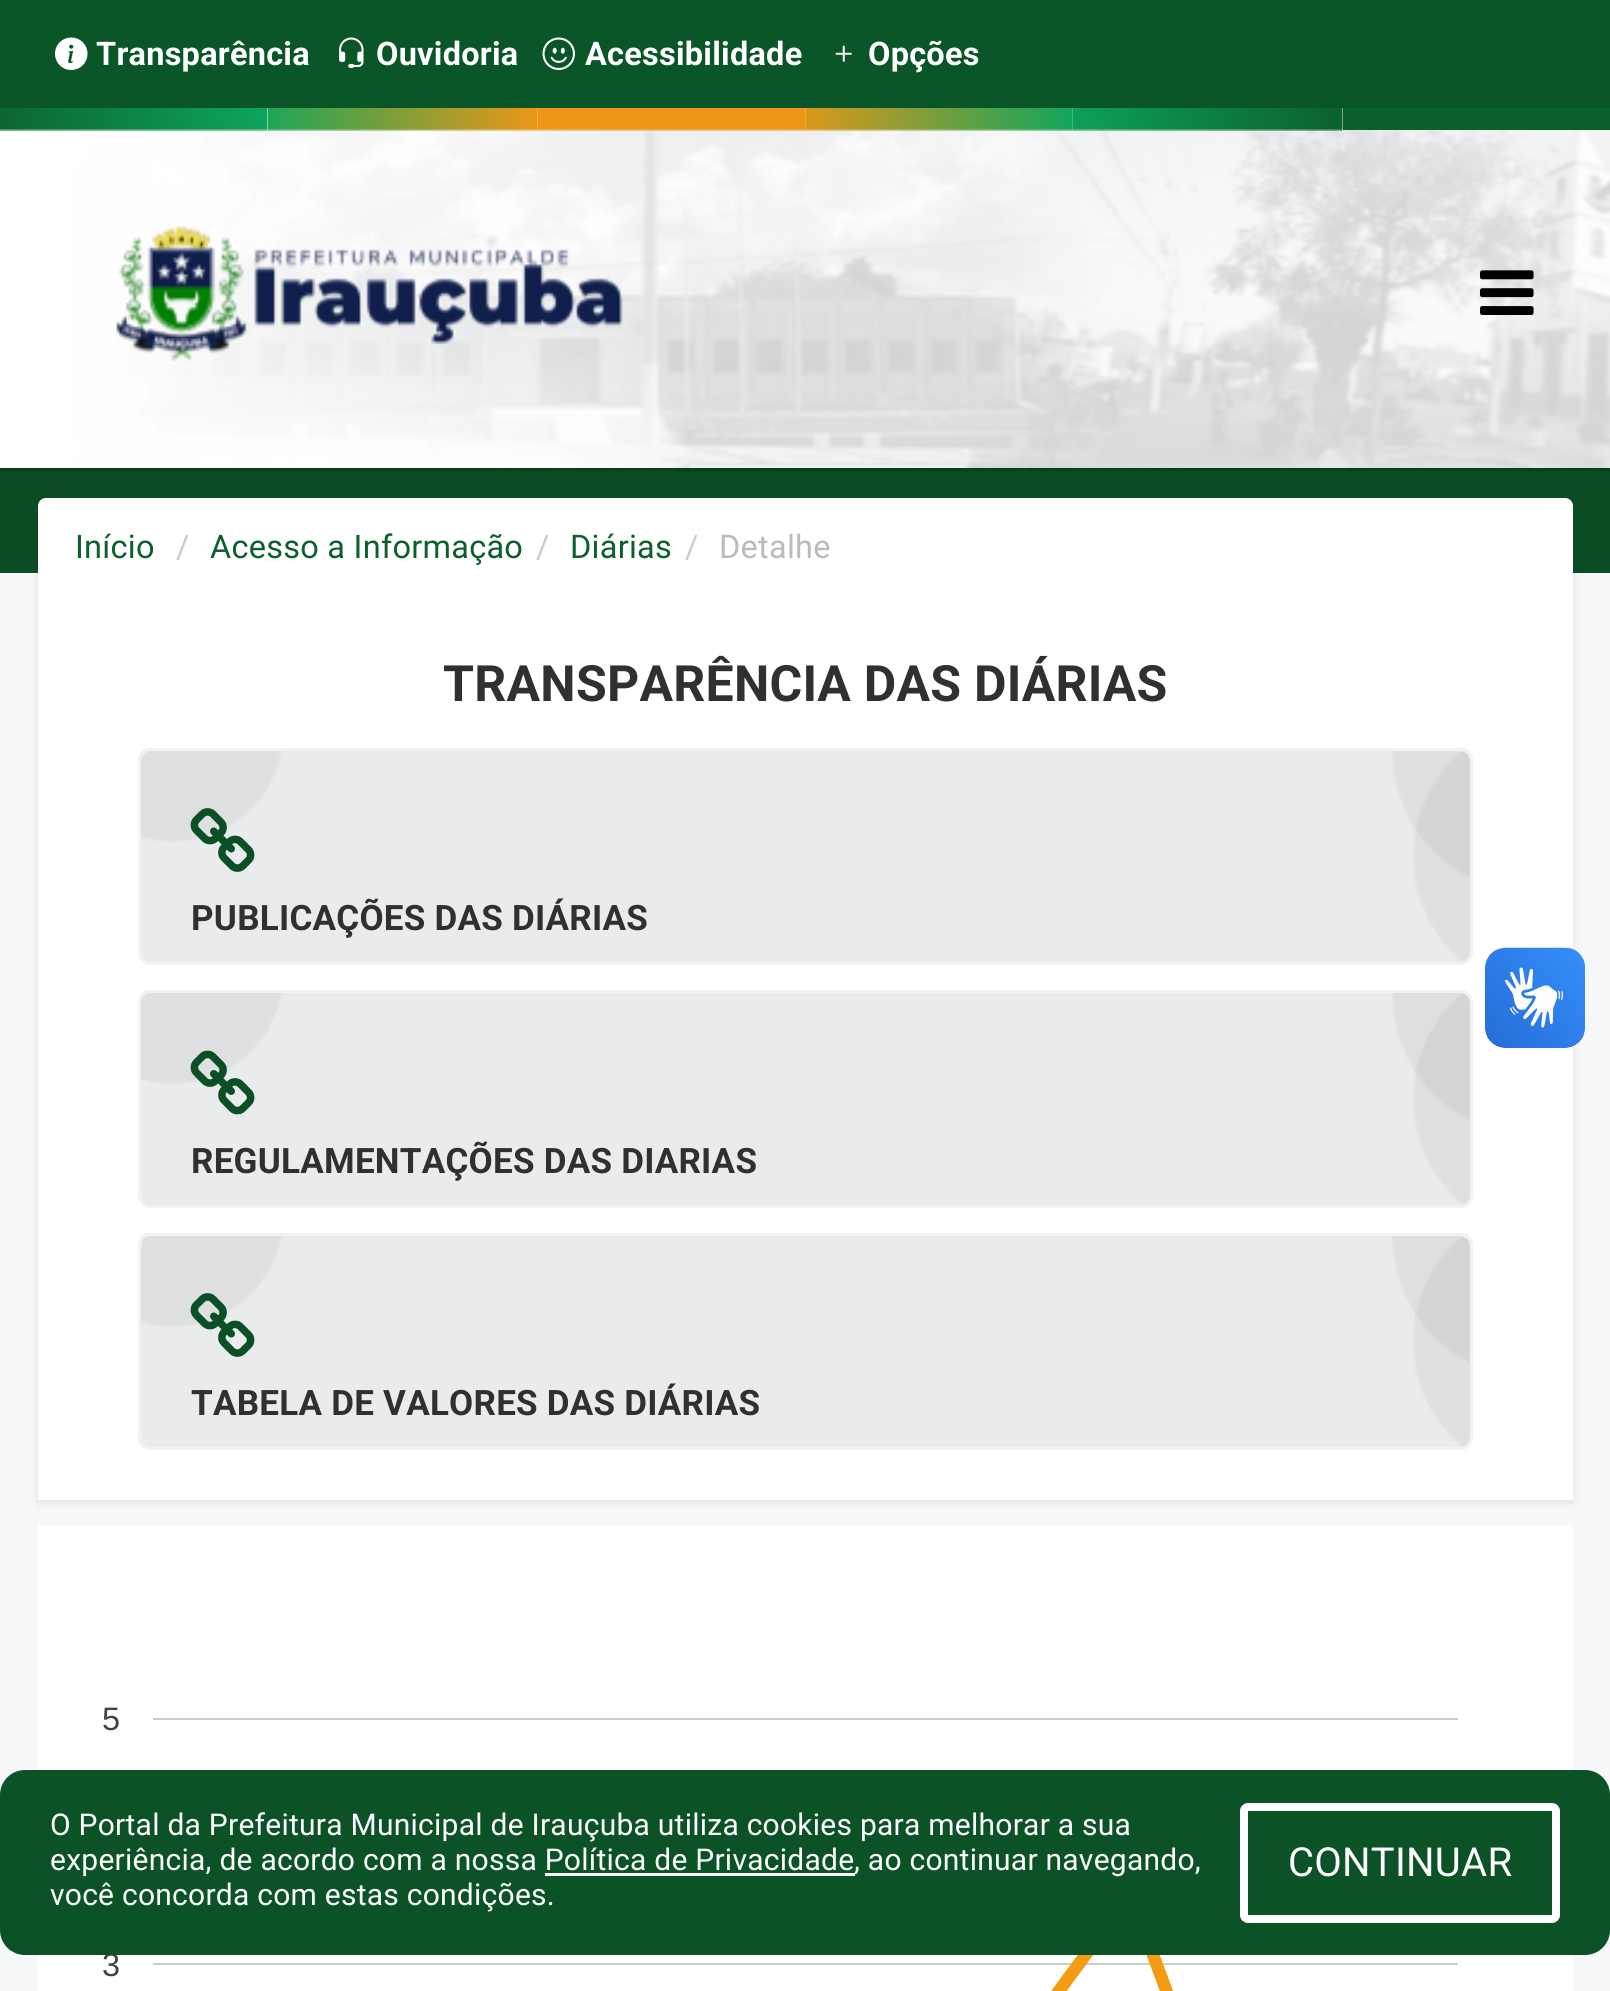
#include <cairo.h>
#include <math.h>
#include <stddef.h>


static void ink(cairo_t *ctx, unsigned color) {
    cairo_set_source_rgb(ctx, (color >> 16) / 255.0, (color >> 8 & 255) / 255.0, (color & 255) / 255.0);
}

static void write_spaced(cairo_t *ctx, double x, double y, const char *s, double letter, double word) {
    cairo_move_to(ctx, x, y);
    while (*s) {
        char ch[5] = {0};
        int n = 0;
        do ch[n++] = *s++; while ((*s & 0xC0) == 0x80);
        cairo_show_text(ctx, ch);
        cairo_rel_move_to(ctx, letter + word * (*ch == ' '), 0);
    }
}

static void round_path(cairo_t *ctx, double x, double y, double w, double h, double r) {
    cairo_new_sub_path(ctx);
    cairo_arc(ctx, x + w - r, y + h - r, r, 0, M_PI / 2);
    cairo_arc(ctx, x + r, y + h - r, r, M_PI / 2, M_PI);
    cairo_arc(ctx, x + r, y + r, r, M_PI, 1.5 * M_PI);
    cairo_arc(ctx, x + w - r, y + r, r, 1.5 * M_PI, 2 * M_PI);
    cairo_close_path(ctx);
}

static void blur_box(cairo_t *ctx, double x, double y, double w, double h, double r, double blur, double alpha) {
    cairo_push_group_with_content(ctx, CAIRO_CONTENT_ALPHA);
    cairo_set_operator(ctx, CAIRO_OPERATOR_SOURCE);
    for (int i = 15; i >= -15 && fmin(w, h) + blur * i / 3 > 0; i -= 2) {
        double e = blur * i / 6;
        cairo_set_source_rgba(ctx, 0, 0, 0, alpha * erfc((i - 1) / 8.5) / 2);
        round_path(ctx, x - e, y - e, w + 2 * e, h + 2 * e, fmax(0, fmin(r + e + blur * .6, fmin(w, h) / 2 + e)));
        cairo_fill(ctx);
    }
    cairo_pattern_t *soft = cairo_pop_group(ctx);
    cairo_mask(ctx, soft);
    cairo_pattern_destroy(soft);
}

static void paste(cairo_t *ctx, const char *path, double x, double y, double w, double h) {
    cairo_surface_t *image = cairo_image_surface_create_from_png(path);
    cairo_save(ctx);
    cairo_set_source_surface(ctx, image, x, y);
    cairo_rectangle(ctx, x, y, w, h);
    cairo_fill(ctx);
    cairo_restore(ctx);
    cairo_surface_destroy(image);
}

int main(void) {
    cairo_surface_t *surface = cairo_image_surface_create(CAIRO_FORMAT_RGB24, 1610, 1991);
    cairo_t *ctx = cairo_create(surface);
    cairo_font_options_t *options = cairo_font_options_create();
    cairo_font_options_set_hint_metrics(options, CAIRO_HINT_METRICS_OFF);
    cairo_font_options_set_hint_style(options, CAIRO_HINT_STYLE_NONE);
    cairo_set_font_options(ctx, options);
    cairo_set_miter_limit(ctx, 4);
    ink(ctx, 0xF6F7F8);
    cairo_paint(ctx);
    ink(ctx, 0x030047);
    blur_box(ctx, 38, 500, 1535, 1003, 0, 4, 0.09);
    ink(ctx, 0x0A4D25);
    cairo_rectangle(ctx, 0, 468, 1610, 105);
    cairo_fill(ctx);
    ink(ctx, 0x000000);
    blur_box(ctx, 0, 3, 1610, 467, 0, 2.5, 0.3);
    paste(ctx, "media/1.png", 0, 108, 1610, 360);
    ink(ctx, 0x0B5629);
    cairo_rectangle(ctx, 0, 0, 1610, 108);
    cairo_fill(ctx);
    paste(ctx, "media/2.png", 55, 37, 33, 33);
    cairo_select_font_face(ctx, "Roboto", CAIRO_FONT_SLANT_NORMAL, CAIRO_FONT_WEIGHT_BOLD);
    cairo_set_font_size(ctx, 32.5);
    ink(ctx, 0xFFFFFF);
    write_spaced(ctx, 96, 65, "Transparência", 0.25, 0);
    paste(ctx, "media/3.png", 339, 37, 25, 31);
    write_spaced(ctx, 376, 65, "Ouvidoria", 0.25, 0);
    paste(ctx, "media/4.png", 542, 37, 33, 33);
    write_spaced(ctx, 585, 65, "Acessibilidade", 0.25, 0);
    paste(ctx, "media/5.png", 835, 45, 17, 17);
    write_spaced(ctx, 868, 65, "Opções", 0.25, 0);
    paste(ctx, "media/6.png", 0, 108, 268, 23);
    paste(ctx, "media/7.png", 268, 108, 270, 23);
    paste(ctx, "media/8.png", 537, 108, 268, 23);
    paste(ctx, "media/9.png", 804, 108, 269, 23);
    paste(ctx, "media/10.png", 1072, 108, 271, 23);
    ink(ctx, 0x0C602E);
    cairo_rectangle(ctx, 1343, 108, 267, 22);
    cairo_fill(ctx);
    paste(ctx, "media/11.png", 116, 225, 507, 136);
    paste(ctx, "media/12.png", 1480, 270, 54, 45);
    ink(ctx, 0xFFFFFF);
    cairo_rectangle(ctx, 38, 590, 1535, 910);
    cairo_fill(ctx);
    round_path(ctx, 38, 498, 1535, 100, 8);
    cairo_fill(ctx);
    cairo_select_font_face(ctx, "Roboto", CAIRO_FONT_SLANT_NORMAL, CAIRO_FONT_WEIGHT_NORMAL);
    ink(ctx, 0x0C602E);
    write_spaced(ctx, 75, 558, "Início", 0.25, 0);
    ink(ctx, 0xCCCCCC);
    write_spaced(ctx, 176, 558, "/", 0.25, 0);
    ink(ctx, 0x0C602E);
    write_spaced(ctx, 210, 558, "Acesso a Informação", 0.25, 0);
    ink(ctx, 0xCCCCCC);
    write_spaced(ctx, 536, 558, "/", 0.25, 0);
    ink(ctx, 0x0C602E);
    write_spaced(ctx, 570, 558, "Diárias", 0.25, 0);
    ink(ctx, 0xCCCCCC);
    write_spaced(ctx, 685, 558, "/", 0.25, 0);
    ink(ctx, 0xBBBBBB);
    write_spaced(ctx, 719, 558, "Detalhe", 0.25, 0);
    cairo_select_font_face(ctx, "Roboto", CAIRO_FONT_SLANT_NORMAL, CAIRO_FONT_WEIGHT_BOLD);
    cairo_set_font_size(ctx, 50);
    ink(ctx, 0x303030);
    write_spaced(ctx, 443, 701, "TRANSPARÊNCIA DAS DIÁRIAS", 0.25, 0);
    ink(ctx, 0xEAEBEC);
    round_path(ctx, 138, 748, 1335, 217, 13);
    cairo_fill(ctx);
    paste(ctx, "media/13.png", 140, 748, 1330, 215);
    round_path(ctx, 139.5, 749.5, 1332, 214, 11.5);
    ink(ctx, 0xF2F2F2);
    cairo_set_line_width(ctx, 3);
    cairo_stroke(ctx);
    paste(ctx, "media/14.png", 190, 808, 65, 64);
    cairo_set_font_size(ctx, 35);
    ink(ctx, 0x303030);
    write_spaced(ctx, 191, 930, "PUBLICAÇÕES DAS DIÁRIAS", 0.25, 0);
    ink(ctx, 0xEAEBEC);
    round_path(ctx, 138, 990, 1335, 218, 13);
    cairo_fill(ctx);
    paste(ctx, "media/15.png", 140, 990, 1330, 215);
    round_path(ctx, 139.5, 991.5, 1332, 215, 11.5);
    ink(ctx, 0xF2F2F2);
    cairo_stroke(ctx);
    paste(ctx, "media/16.png", 190, 1050, 65, 65);
    ink(ctx, 0x303030);
    write_spaced(ctx, 191, 1173, "REGULAMENTAÇÕES DAS DIARIAS", 0.25, 0);
    ink(ctx, 0xEAEBEC);
    round_path(ctx, 138, 1233, 1335, 217, 13);
    cairo_fill(ctx);
    paste(ctx, "media/13.png", 140, 1233, 1330, 215);
    round_path(ctx, 139.5, 1234.5, 1332, 214, 11.5);
    ink(ctx, 0xF2F2F2);
    cairo_stroke(ctx);
    paste(ctx, "media/14.png", 190, 1293, 65, 64);
    ink(ctx, 0x303030);
    write_spaced(ctx, 191, 1415, "TABELA DE VALORES DAS DIÁRIAS", 0.25, 0);
    paste(ctx, "media/17.png", 1485, 947, 100, 101);
    paste(ctx, "media/18.png", 1485, 948, 100, 100);
    ink(ctx, 0xFFFFFF);
    cairo_rectangle(ctx, 38, 1525, 1535, 466);
    cairo_fill(ctx);
    cairo_select_font_face(ctx, "Liberation Sans", CAIRO_FONT_SLANT_NORMAL, CAIRO_FONT_WEIGHT_NORMAL);
    cairo_set_font_size(ctx, 32.5);
    ink(ctx, 0x444444);
    write_spaced(ctx, 102, 1730, "5", 0.25, 0);
    ink(ctx, 0xCCCCCC);
    cairo_rectangle(ctx, 153, 1718, 1305, 2);
    cairo_fill(ctx);
    ink(ctx, 0x444444);
    write_spaced(ctx, 102, 1976, "3", 0.25, 0);
    ink(ctx, 0xCCCCCC);
    cairo_rectangle(ctx, 153, 1963, 1305, 2);
    cairo_fill(ctx);
    cairo_new_path(ctx);
    cairo_move_to(ctx, 219, 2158);
    cairo_line_to(ctx, 479.5, 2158);
    cairo_line_to(ctx, 609.5, 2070);
    cairo_line_to(ctx, 1000.5, 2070);
    cairo_line_to(ctx, 1130.5, 1894);
    cairo_line_to(ctx, 1261, 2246);
    cairo_line_to(ctx, 1391, 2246);
    ink(ctx, 0xF39C12);
    cairo_set_line_width(ctx, 12.5);
    cairo_stroke(ctx);
    ink(ctx, 0x0B5327);
    round_path(ctx, 0, 1770, 1610, 185, 25);
    cairo_fill(ctx);
    cairo_select_font_face(ctx, "Roboto", CAIRO_FONT_SLANT_NORMAL, CAIRO_FONT_WEIGHT_NORMAL);
    cairo_set_font_size(ctx, 30);
    ink(ctx, 0xFFFFFF);
    write_spaced(ctx, 50, 1835, "O Portal da Prefeitura Municipal de Irauçuba utiliza cookies para melhorar a sua", 0.25, 0);
    write_spaced(ctx, 50, 1870, "experiência, de acordo com a nossa Política de Privacidade", 0.25, 0);
    cairo_rectangle(ctx, 545, 1873, 310, 3);
    cairo_fill(ctx);
    write_spaced(ctx, 854, 1870, ", ao continuar navegando,", 0.25, 0);
    write_spaced(ctx, 50, 1905, "você concorda com estas condições.", 0.25, 0);
    round_path(ctx, 1244, 1807, 312, 112, 4);
    cairo_set_line_width(ctx, 8);
    cairo_stroke(ctx);
    cairo_set_font_size(ctx, 40);
    write_spaced(ctx, 1288, 1876, "CONTINUAR", 0.25, 0);
    cairo_surface_write_to_png(surface, "image.png");
    cairo_font_options_destroy(options);
    cairo_destroy(ctx);
    cairo_surface_destroy(surface);
    return 0;
}
